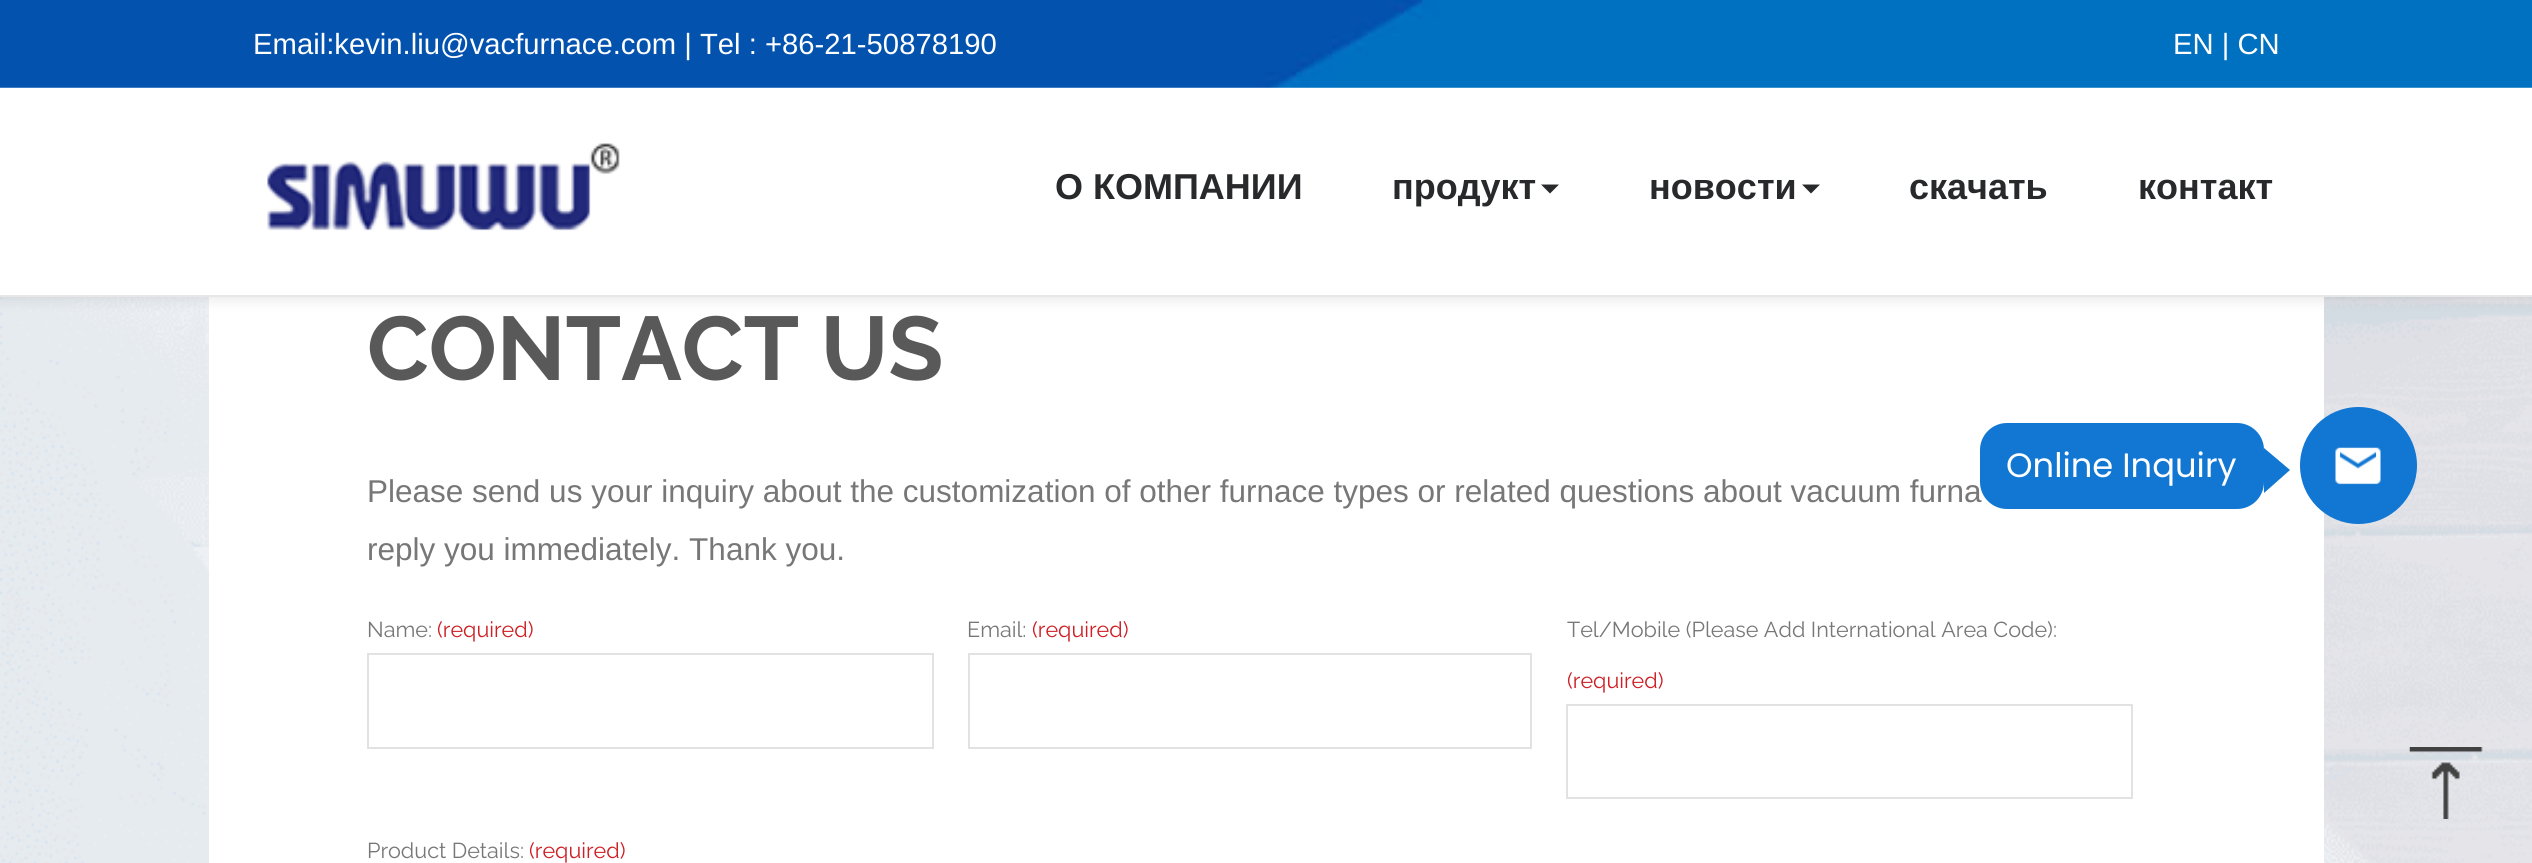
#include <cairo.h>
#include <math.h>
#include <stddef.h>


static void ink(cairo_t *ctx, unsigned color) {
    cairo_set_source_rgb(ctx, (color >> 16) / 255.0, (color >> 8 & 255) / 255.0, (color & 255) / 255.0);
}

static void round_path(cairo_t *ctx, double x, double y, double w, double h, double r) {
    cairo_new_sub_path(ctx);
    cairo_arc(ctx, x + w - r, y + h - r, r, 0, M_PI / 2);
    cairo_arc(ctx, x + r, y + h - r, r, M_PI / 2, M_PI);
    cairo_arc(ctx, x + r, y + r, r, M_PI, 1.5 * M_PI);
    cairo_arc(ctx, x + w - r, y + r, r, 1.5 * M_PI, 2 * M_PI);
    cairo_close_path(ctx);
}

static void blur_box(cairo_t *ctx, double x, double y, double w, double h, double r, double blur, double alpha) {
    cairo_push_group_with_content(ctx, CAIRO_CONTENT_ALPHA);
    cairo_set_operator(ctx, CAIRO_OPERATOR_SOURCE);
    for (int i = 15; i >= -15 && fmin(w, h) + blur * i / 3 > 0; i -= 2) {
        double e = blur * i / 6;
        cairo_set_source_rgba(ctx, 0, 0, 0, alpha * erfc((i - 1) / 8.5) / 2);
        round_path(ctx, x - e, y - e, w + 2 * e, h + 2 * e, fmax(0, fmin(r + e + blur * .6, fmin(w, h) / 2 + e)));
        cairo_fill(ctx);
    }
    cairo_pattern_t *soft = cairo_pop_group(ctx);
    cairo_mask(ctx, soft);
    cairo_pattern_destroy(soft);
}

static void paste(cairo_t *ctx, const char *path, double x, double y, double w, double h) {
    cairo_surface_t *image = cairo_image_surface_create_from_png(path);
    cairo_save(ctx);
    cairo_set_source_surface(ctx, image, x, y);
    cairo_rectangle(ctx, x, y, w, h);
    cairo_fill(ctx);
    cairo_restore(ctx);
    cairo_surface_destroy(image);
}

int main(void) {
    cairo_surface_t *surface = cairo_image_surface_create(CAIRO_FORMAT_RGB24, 2532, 863);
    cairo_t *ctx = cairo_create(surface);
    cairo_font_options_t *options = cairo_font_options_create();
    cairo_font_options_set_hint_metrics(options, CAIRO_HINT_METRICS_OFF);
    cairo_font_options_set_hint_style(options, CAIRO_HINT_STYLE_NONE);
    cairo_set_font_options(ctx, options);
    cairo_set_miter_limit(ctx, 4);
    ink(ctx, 0xFFFFFF);
    cairo_paint(ctx);
    paste(ctx, "media/3.png", 0, 297, 2532, 566);
    ink(ctx, 0xFFFFFF);
    cairo_rectangle(ctx, 209, 297, 2115, 566);
    cairo_fill(ctx);
    ink(ctx, 0x000000);
    blur_box(ctx, 0, 2, 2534, 297, 0, 7, 0.1);
    ink(ctx, 0xFFFFFF);
    cairo_rectangle(ctx, 0, 87, 2532, 208);
    cairo_fill(ctx);
    ink(ctx, 0xE7E7E7);
    cairo_rectangle(ctx, 0, 295, 2532, 2);
    cairo_fill(ctx);
    paste(ctx, "media/1.png", 0, 0, 2532, 88);
    cairo_select_font_face(ctx, "Liberation Sans", CAIRO_FONT_SLANT_NORMAL, CAIRO_FONT_WEIGHT_NORMAL);
    cairo_set_font_size(ctx, 29.25);
    ink(ctx, 0xFFFFFF);
    cairo_move_to(ctx, 253, 54);
    cairo_show_text(ctx, "Email:kevin.liu@vacfurnace.com | Tel : +86-21-50878190");
    cairo_move_to(ctx, 2173, 54);
    cairo_show_text(ctx, "EN | CN");
    paste(ctx, "media/2.png", 267, 143, 353, 88);
    cairo_select_font_face(ctx, "Liberation Sans", CAIRO_FONT_SLANT_NORMAL, CAIRO_FONT_WEIGHT_BOLD);
    cairo_set_font_size(ctx, 36);
    ink(ctx, 0x27292B);
    cairo_move_to(ctx, 1055, 199);
    cairo_show_text(ctx, "О КОМПАНИИ");
    cairo_move_to(ctx, 1392, 199);
    cairo_show_text(ctx, "продукт");
    cairo_new_path(ctx);
    cairo_move_to(ctx, 1541, 184.5);
    cairo_line_to(ctx, 1559, 184.5);
    cairo_line_to(ctx, 1550, 193.5);
    cairo_close_path(ctx);
    cairo_fill(ctx);
    cairo_move_to(ctx, 1649, 199);
    cairo_show_text(ctx, "новости");
    cairo_new_path(ctx);
    cairo_move_to(ctx, 1802, 184.5);
    cairo_line_to(ctx, 1820, 184.5);
    cairo_line_to(ctx, 1811, 193.5);
    cairo_close_path(ctx);
    cairo_fill(ctx);
    cairo_move_to(ctx, 1909, 199);
    cairo_show_text(ctx, "скачать");
    cairo_move_to(ctx, 2138, 199);
    cairo_show_text(ctx, "контакт");
    cairo_select_font_face(ctx, "Raleway", CAIRO_FONT_SLANT_NORMAL, CAIRO_FONT_WEIGHT_BOLD);
    cairo_set_font_size(ctx, 90);
    ink(ctx, 0x595959);
    cairo_move_to(ctx, 367, 380);
    cairo_show_text(ctx, "CONTACT US");
    cairo_select_font_face(ctx, "Liberation Sans", CAIRO_FONT_SLANT_NORMAL, CAIRO_FONT_WEIGHT_NORMAL);
    cairo_set_font_size(ctx, 31.5);
    ink(ctx, 0x777777);
    cairo_move_to(ctx, 367, 502);
    cairo_show_text(ctx, "Please send us your inquiry about the customization of other furnace types or related questions about vacuum furna");
    cairo_move_to(ctx, 367, 560);
    cairo_show_text(ctx, "reply you immediately. Thank you.");
    cairo_select_font_face(ctx, "Raleway", CAIRO_FONT_SLANT_NORMAL, CAIRO_FONT_WEIGHT_NORMAL);
    cairo_set_font_size(ctx, 21.6);
    cairo_move_to(ctx, 367, 637);
    cairo_show_text(ctx, "Name:");
    ink(ctx, 0xCD1F25);
    cairo_move_to(ctx, 437, 637);
    cairo_show_text(ctx, "(required)");
    cairo_rectangle(ctx, 368, 654, 565, 94);
    ink(ctx, 0xE2E2E2);
    cairo_stroke(ctx);
    ink(ctx, 0x777777);
    cairo_move_to(ctx, 967, 637);
    cairo_show_text(ctx, "Email:");
    ink(ctx, 0xCD1F25);
    cairo_move_to(ctx, 1032, 637);
    cairo_show_text(ctx, "(required)");
    cairo_rectangle(ctx, 969, 654, 562, 94);
    ink(ctx, 0xE2E2E2);
    cairo_stroke(ctx);
    ink(ctx, 0x777777);
    cairo_move_to(ctx, 1567, 637);
    cairo_show_text(ctx, "Tel/Mobile (Please Add International Area Code):");
    ink(ctx, 0xCD1F25);
    cairo_move_to(ctx, 1567, 688);
    cairo_show_text(ctx, "(required)");
    cairo_rectangle(ctx, 1567, 705, 565, 93);
    ink(ctx, 0xE2E2E2);
    cairo_stroke(ctx);
    ink(ctx, 0x777777);
    cairo_move_to(ctx, 367, 858);
    cairo_show_text(ctx, "Product Details:");
    ink(ctx, 0xCD1F25);
    cairo_move_to(ctx, 529, 858);
    cairo_show_text(ctx, "(required)");
    ink(ctx, 0x1277D3);
    cairo_new_path(ctx);
    cairo_arc(ctx, 2358.5, 465.5, 58.5, 0, 2 * M_PI);
    cairo_fill(ctx);
    round_path(ctx, 1980, 423, 284, 86, 27);
    cairo_fill(ctx);
    cairo_select_font_face(ctx, "Poppins", CAIRO_FONT_SLANT_NORMAL, CAIRO_FONT_WEIGHT_NORMAL);
    cairo_set_font_size(ctx, 33.75);
    ink(ctx, 0xFFFFFF);
    cairo_move_to(ctx, 2006, 477);
    cairo_show_text(ctx, "Online Inquiry");
    ink(ctx, 0x1277D3);
    cairo_new_path(ctx);
    cairo_move_to(ctx, 2264, 493);
    cairo_line_to(ctx, 2264, 448);
    cairo_line_to(ctx, 2290, 470);
    cairo_close_path(ctx);
    cairo_fill(ctx);
    paste(ctx, "media/4.png", 2335, 447, 46, 38);
    paste(ctx, "media/5.png", 2409, 747, 74, 72);
    cairo_surface_write_to_png(surface, "image.png");
    cairo_font_options_destroy(options);
    cairo_destroy(ctx);
    cairo_surface_destroy(surface);
    return 0;
}
